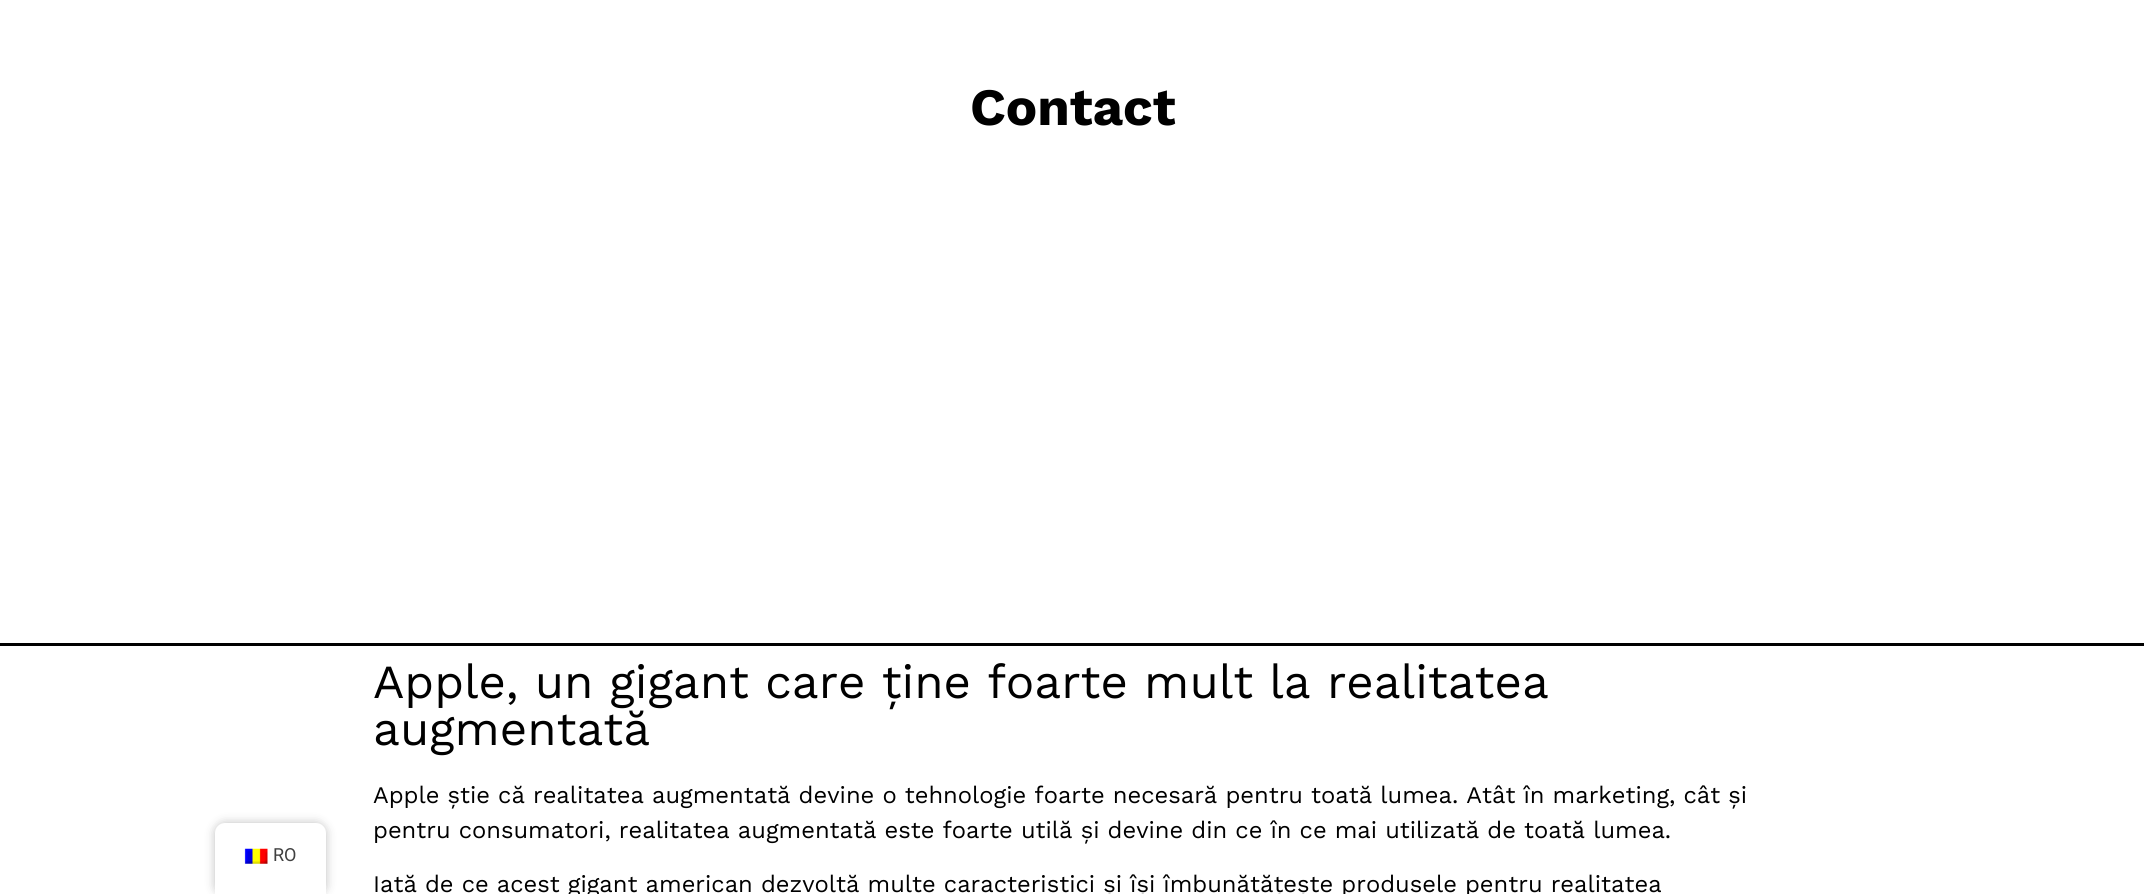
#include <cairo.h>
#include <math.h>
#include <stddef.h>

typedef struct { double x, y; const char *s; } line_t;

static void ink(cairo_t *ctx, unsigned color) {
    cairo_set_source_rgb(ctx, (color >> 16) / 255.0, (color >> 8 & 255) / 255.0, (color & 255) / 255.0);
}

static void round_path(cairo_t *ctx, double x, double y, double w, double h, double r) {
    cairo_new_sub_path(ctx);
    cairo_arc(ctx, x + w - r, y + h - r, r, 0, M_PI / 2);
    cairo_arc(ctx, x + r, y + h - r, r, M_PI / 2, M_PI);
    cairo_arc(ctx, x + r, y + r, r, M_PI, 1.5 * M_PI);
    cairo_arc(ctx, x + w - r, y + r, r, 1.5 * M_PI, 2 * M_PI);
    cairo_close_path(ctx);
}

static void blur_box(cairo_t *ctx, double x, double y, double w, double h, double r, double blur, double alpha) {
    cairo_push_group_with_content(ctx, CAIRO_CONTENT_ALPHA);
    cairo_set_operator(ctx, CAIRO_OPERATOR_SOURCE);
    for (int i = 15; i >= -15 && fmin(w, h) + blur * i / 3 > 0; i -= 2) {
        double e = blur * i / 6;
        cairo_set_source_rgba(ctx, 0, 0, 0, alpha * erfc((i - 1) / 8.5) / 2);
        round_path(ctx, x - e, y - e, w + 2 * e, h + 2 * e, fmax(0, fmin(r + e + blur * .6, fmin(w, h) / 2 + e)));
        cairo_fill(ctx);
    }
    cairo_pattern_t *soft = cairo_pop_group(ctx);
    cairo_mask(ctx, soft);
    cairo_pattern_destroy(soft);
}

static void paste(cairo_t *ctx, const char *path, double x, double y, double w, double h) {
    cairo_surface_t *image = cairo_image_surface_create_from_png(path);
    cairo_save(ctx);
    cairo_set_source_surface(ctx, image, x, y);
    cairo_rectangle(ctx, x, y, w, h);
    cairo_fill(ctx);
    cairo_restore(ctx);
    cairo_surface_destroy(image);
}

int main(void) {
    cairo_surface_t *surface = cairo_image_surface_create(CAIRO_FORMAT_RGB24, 2144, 894);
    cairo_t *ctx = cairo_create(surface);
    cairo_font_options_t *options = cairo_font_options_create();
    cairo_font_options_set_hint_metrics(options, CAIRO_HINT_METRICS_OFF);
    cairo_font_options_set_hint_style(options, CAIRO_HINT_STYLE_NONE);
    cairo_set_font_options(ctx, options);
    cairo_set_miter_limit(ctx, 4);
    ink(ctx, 0xFFFFFF);
    cairo_paint(ctx);
    ink(ctx, 0x000000);
    blur_box(ctx, 215, 823, 111, 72, 10, 5, 0.25);
    ink(ctx, 0xFFFFFF);
    cairo_new_path(ctx);
    cairo_move_to(ctx, 225, 823);
    cairo_line_to(ctx, 316, 823);
    cairo_curve_to(ctx, 321.5, 823, 326, 827.5, 326, 833);
    cairo_line_to(ctx, 326, 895);
    cairo_line_to(ctx, 215, 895);
    cairo_line_to(ctx, 215, 833);
    cairo_curve_to(ctx, 215, 827.5, 219.5, 823, 225, 823);
    cairo_close_path(ctx);
    cairo_fill(ctx);
    paste(ctx, "media/1.png", 244, 848, 24, 16);
    cairo_select_font_face(ctx, "Roboto", CAIRO_FONT_SLANT_NORMAL, CAIRO_FONT_WEIGHT_NORMAL);
    cairo_set_font_size(ctx, 18);
    ink(ctx, 0x404040);
    cairo_move_to(ctx, 273, 861);
    cairo_show_text(ctx, "RO");
    cairo_select_font_face(ctx, "Work Sans", CAIRO_FONT_SLANT_NORMAL, CAIRO_FONT_WEIGHT_BOLD);
    cairo_set_font_size(ctx, 52.5);
    ink(ctx, 0x000000);
    cairo_move_to(ctx, 970, 125);
    cairo_show_text(ctx, "Contact");
    cairo_rectangle(ctx, 0, 643, 2144, 3);
    cairo_fill(ctx);
    cairo_select_font_face(ctx, "Work Sans", CAIRO_FONT_SLANT_NORMAL, CAIRO_FONT_WEIGHT_NORMAL);
    cairo_set_font_size(ctx, 47.5);
    cairo_move_to(ctx, 373, 698);
    cairo_show_text(ctx, "Apple, un gigant care ține foarte mult la realitatea");
    cairo_move_to(ctx, 373, 745);
    cairo_show_text(ctx, "augmentată");
    cairo_set_font_size(ctx, 23.75);
    {
        static const line_t items[] = {
            {373, 803, "Apple știe că realitatea augmentată devine o tehnologie foarte necesară pentru toată lumea. Atât în marketing, cât și"},
            {373, 838, "pentru consumatori, realitatea augmentată este foarte utilă și devine din ce în ce mai utilizată de toată lumea."},
            {373, 892, "Iată de ce acest gigant american dezvoltă multe caracteristici și își îmbunătățește produsele pentru realitatea"},
        };
        for (size_t i = 0; i < sizeof items / sizeof *items; i++) {
            cairo_move_to(ctx, items[i].x, items[i].y);
            cairo_show_text(ctx, items[i].s);
        }
    }
    cairo_surface_write_to_png(surface, "image.png");
    cairo_font_options_destroy(options);
    cairo_destroy(ctx);
    cairo_surface_destroy(surface);
    return 0;
}
